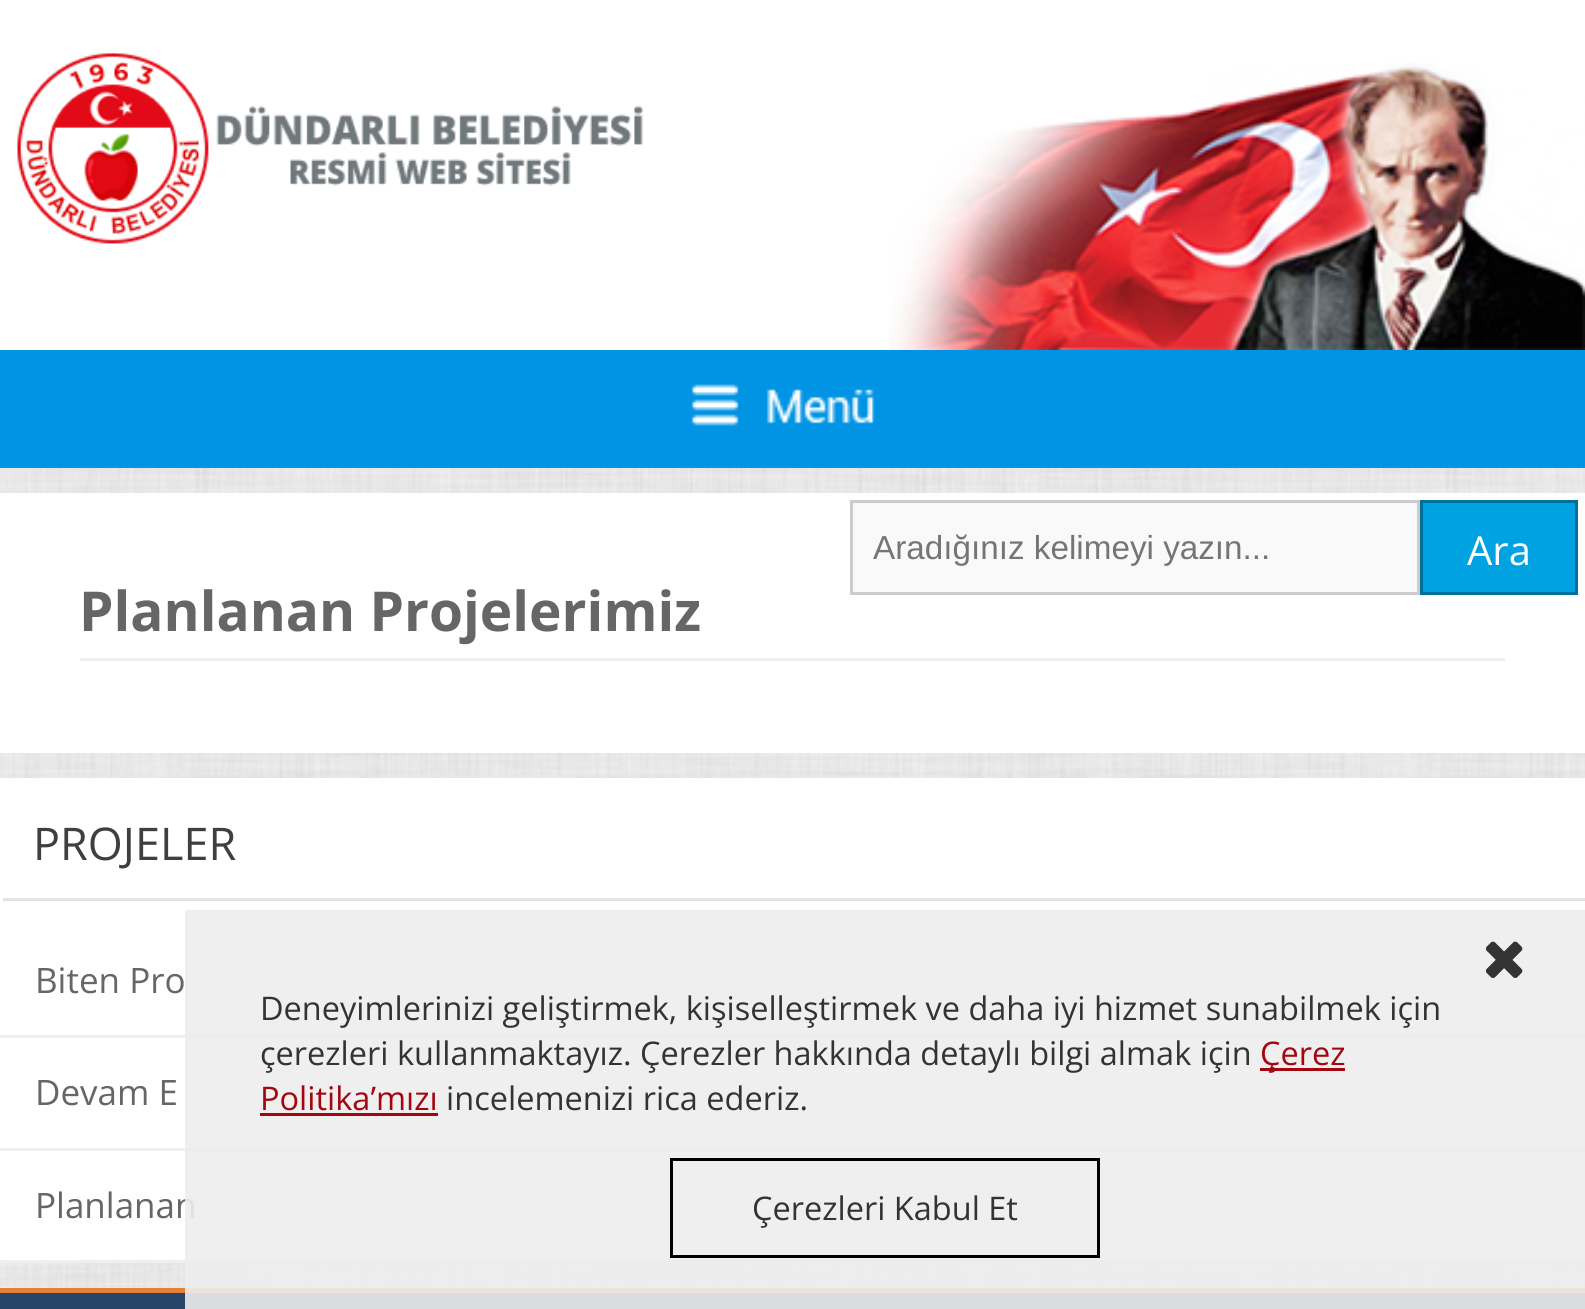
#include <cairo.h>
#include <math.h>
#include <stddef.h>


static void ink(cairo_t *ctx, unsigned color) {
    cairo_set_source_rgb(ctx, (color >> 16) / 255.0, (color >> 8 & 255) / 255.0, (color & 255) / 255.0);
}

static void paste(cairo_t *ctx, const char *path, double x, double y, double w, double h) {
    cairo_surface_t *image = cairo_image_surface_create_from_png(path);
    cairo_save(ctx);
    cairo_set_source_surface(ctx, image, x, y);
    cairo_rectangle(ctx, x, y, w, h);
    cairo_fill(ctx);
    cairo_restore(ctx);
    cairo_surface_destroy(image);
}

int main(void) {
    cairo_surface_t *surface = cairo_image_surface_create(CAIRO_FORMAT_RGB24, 1585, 1309);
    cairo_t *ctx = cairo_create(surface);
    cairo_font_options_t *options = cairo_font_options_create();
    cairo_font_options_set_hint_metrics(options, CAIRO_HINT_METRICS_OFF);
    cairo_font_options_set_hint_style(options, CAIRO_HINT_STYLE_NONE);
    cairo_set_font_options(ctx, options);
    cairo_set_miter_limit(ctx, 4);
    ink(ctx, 0xFFFFFF);
    cairo_paint(ctx);
    paste(ctx, "media/1.png", 0, 468, 1585, 820);
    ink(ctx, 0x0194E4);
    cairo_rectangle(ctx, 0, 350, 1585, 118);
    cairo_fill(ctx);
    paste(ctx, "media/2.png", 691, 384, 184, 42);
    paste(ctx, "media/3.png", 17, 53, 626, 191);
    paste(ctx, "media/4.png", 889, 63, 696, 287);
    ink(ctx, 0xFFFFFF);
    cairo_rectangle(ctx, 0, 493, 1585, 260);
    cairo_fill(ctx);
    ink(ctx, 0xF9F9F9);
    cairo_rectangle(ctx, 851.5, 501.5, 567, 92);
    cairo_fill_preserve(ctx);
    ink(ctx, 0xCCCCCC);
    cairo_set_line_width(ctx, 3);
    cairo_stroke(ctx);
    cairo_select_font_face(ctx, "Liberation Sans", CAIRO_FONT_SLANT_NORMAL, CAIRO_FONT_WEIGHT_NORMAL);
    cairo_set_font_size(ctx, 33.25);
    ink(ctx, 0x757575);
    cairo_move_to(ctx, 873, 559);
    cairo_show_text(ctx, "Aradığınız kelimeyi yazın...");
    ink(ctx, 0x00A2E1);
    cairo_rectangle(ctx, 1421.5, 501.5, 155, 92);
    cairo_fill_preserve(ctx);
    ink(ctx, 0x00719B);
    cairo_stroke(ctx);
    cairo_select_font_face(ctx, "Open Sans", CAIRO_FONT_SLANT_NORMAL, CAIRO_FONT_WEIGHT_NORMAL);
    cairo_set_font_size(ctx, 40);
    ink(ctx, 0xFFFFFF);
    cairo_move_to(ctx, 1467, 565);
    cairo_show_text(ctx, "Ara");
    ink(ctx, 0xEFEFEF);
    cairo_rectangle(ctx, 80, 658, 1425, 3);
    cairo_fill(ctx);
    cairo_select_font_face(ctx, "Open Sans", CAIRO_FONT_SLANT_NORMAL, CAIRO_FONT_WEIGHT_BOLD);
    cairo_set_font_size(ctx, 55);
    ink(ctx, 0x666666);
    cairo_move_to(ctx, 79, 631);
    cairo_show_text(ctx, "Planlanan Projelerimiz");
    ink(ctx, 0xFFFFFF);
    cairo_rectangle(ctx, 0, 778, 1585, 482);
    cairo_fill(ctx);
    ink(ctx, 0xE4E4E4);
    cairo_rectangle(ctx, 3, 898, 1582, 3);
    cairo_fill(ctx);
    cairo_select_font_face(ctx, "Open Sans", CAIRO_FONT_SLANT_NORMAL, CAIRO_FONT_WEIGHT_NORMAL);
    cairo_set_font_size(ctx, 45);
    ink(ctx, 0x3F3F3F);
    cairo_move_to(ctx, 33, 860);
    cairo_show_text(ctx, "PROJELER");
    ink(ctx, 0xEFEFEF);
    cairo_rectangle(ctx, 0, 1035, 1585, 3);
    cairo_fill(ctx);
    cairo_set_font_size(ctx, 35);
    ink(ctx, 0x666666);
    cairo_move_to(ctx, 35, 993);
    cairo_show_text(ctx, "Biten Pro");
    ink(ctx, 0xEFEFEF);
    cairo_rectangle(ctx, 0, 1148, 1585, 3);
    cairo_fill(ctx);
    ink(ctx, 0x666666);
    cairo_move_to(ctx, 35, 1105);
    cairo_show_text(ctx, "Devam E");
    ink(ctx, 0xEFEFEF);
    cairo_rectangle(ctx, 0, 1260, 1585, 3);
    cairo_fill(ctx);
    ink(ctx, 0x666666);
    cairo_move_to(ctx, 35, 1218);
    cairo_show_text(ctx, "Planlanan");
    ink(ctx, 0x274568);
    cairo_rectangle(ctx, 0, 1293, 1585, 16);
    cairo_fill(ctx);
    ink(ctx, 0xE58037);
    cairo_rectangle(ctx, 0, 1288, 1585, 5);
    cairo_fill(ctx);
    cairo_set_source_rgba(ctx, 0.933, 0.933, 0.933, 0.9);
    cairo_rectangle(ctx, 185, 910, 1400, 399);
    cairo_fill(ctx);
    paste(ctx, "media/5.png", 1485, 941, 38, 37);
    cairo_set_font_size(ctx, 32.5);
    ink(ctx, 0x333333);
    cairo_move_to(ctx, 260, 1020);
    cairo_show_text(ctx, "Deneyimlerinizi geliştirmek, kişiselleştirmek ve daha iyi hizmet sunabilmek için");
    cairo_move_to(ctx, 260, 1065);
    cairo_show_text(ctx, "çerezleri kullanmaktayız. Çerezler hakkında detaylı bilgi almak için");
    ink(ctx, 0xA40610);
    cairo_rectangle(ctx, 1260, 1068, 85, 3);
    cairo_fill(ctx);
    cairo_move_to(ctx, 1260, 1065);
    cairo_show_text(ctx, "Çerez");
    cairo_move_to(ctx, 260, 1110);
    cairo_show_text(ctx, "Politika’mızı");
    cairo_rectangle(ctx, 260, 1113, 178, 3);
    cairo_fill(ctx);
    ink(ctx, 0x333333);
    cairo_move_to(ctx, 446, 1110);
    cairo_show_text(ctx, "incelemenizi rica ederiz.");
    cairo_rectangle(ctx, 671.5, 1159.5, 427, 97);
    ink(ctx, 0x000000);
    cairo_stroke(ctx);
    ink(ctx, 0x333333);
    cairo_move_to(ctx, 752, 1220);
    cairo_show_text(ctx, "Çerezleri Kabul Et");
    cairo_surface_write_to_png(surface, "image.png");
    cairo_font_options_destroy(options);
    cairo_destroy(ctx);
    cairo_surface_destroy(surface);
    return 0;
}
